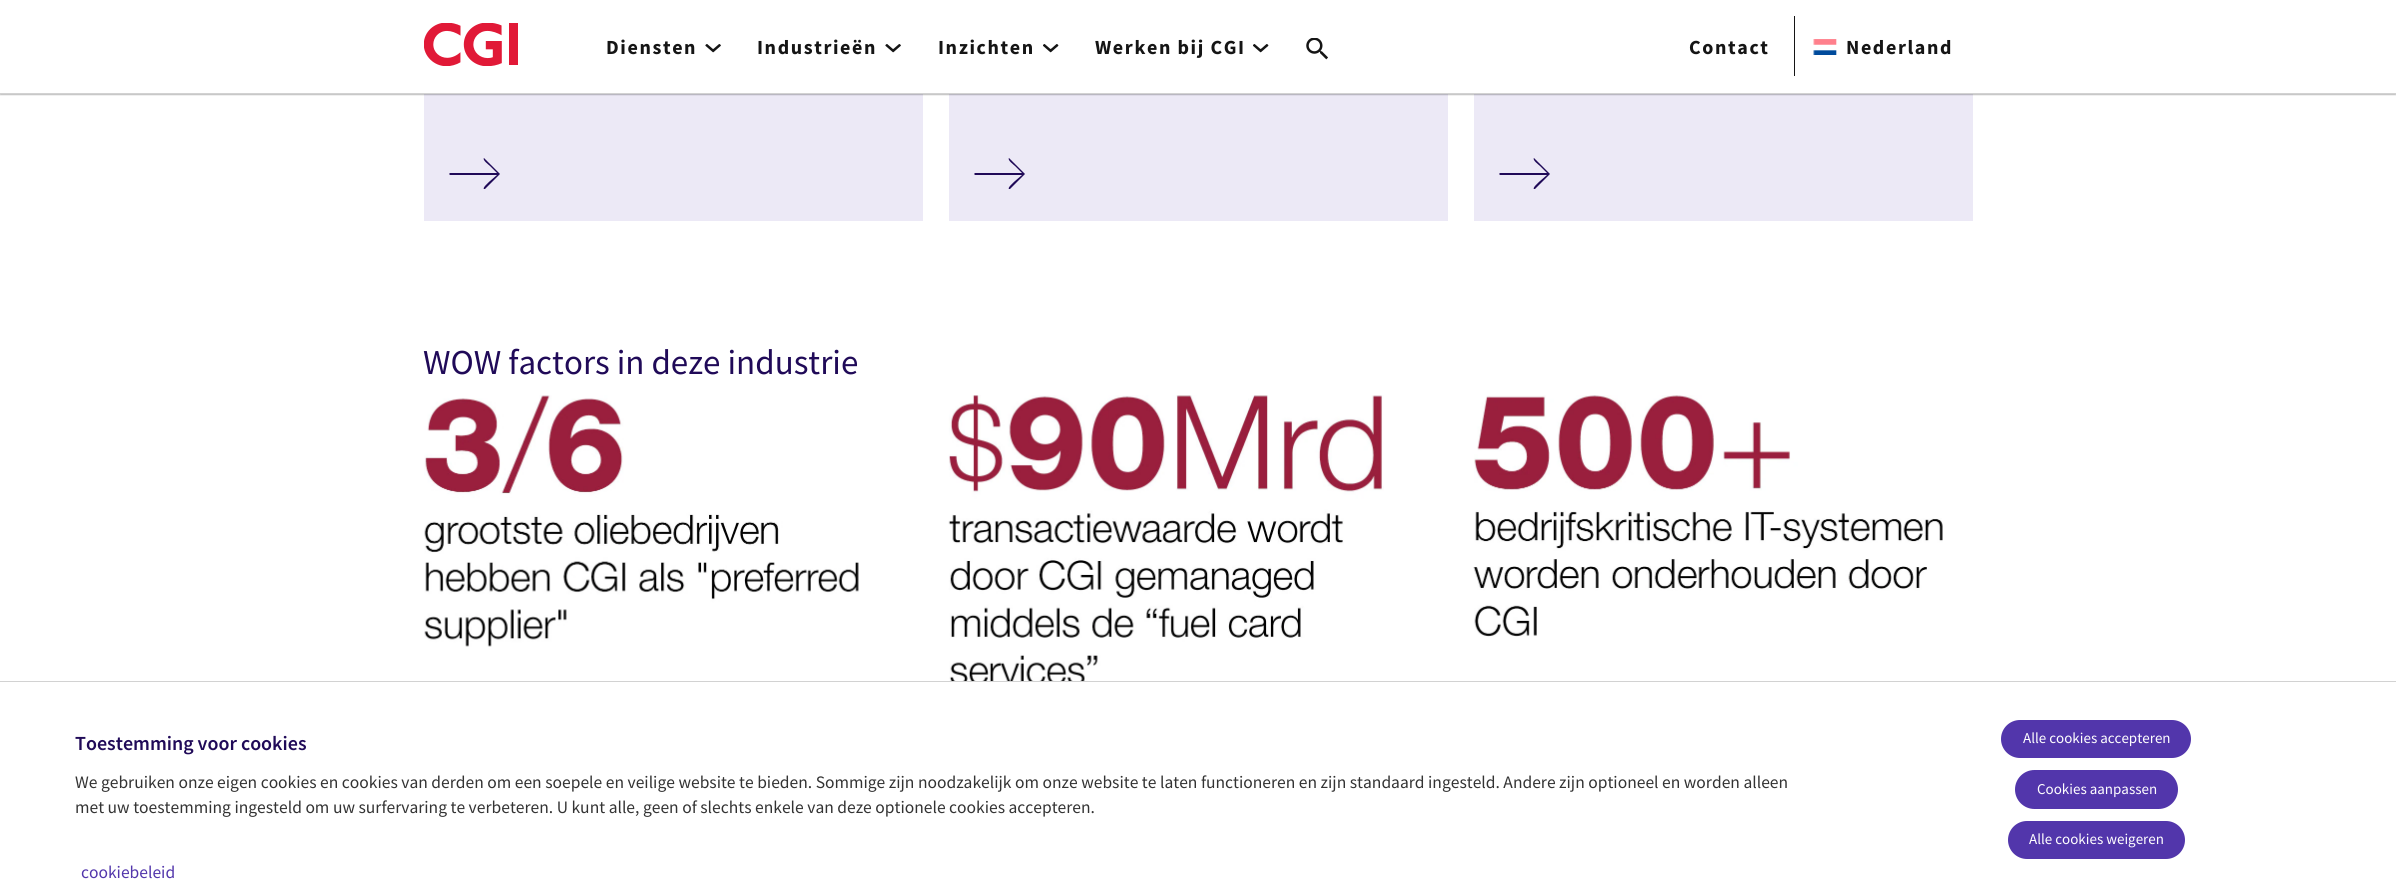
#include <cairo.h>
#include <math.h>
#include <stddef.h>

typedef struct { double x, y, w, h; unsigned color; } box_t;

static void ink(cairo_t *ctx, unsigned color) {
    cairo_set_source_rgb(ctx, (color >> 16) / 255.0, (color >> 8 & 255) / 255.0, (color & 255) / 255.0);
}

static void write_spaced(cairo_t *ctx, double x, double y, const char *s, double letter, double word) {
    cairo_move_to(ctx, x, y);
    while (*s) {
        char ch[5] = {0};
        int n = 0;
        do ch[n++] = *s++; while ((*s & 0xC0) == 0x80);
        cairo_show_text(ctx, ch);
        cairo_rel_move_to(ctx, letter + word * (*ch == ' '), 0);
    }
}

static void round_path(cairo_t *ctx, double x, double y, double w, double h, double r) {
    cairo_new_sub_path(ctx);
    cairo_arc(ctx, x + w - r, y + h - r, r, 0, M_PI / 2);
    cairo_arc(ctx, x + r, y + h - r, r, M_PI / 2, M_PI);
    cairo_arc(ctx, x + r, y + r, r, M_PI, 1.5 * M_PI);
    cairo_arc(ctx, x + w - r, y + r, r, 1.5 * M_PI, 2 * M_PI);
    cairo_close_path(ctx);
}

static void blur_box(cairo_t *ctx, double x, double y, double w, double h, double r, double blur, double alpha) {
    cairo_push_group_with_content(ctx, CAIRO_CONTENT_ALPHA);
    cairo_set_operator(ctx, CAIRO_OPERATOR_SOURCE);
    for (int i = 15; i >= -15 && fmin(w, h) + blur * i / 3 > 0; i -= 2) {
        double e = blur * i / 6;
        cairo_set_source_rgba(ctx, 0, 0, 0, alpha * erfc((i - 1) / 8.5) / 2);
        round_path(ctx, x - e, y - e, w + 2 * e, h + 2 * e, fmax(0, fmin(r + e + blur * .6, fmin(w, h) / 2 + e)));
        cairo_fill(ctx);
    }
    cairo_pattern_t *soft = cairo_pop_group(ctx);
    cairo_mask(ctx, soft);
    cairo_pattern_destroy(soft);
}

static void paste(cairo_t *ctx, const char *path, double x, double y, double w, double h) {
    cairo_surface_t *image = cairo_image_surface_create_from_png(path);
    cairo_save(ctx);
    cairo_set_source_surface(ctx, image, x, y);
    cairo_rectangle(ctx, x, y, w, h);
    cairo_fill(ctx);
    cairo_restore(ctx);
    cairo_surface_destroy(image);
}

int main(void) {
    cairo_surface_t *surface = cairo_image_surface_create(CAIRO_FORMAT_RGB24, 2396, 896);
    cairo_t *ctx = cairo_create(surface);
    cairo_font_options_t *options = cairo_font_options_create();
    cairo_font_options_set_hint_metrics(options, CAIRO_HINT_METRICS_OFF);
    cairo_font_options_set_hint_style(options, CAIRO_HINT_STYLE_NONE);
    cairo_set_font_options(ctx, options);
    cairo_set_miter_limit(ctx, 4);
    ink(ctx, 0xFFFFFF);
    cairo_paint(ctx);
    {
        static const box_t items[] = {
            {424, 94, 499, 127, 0xECE9F6},
            {949, 94, 499, 127, 0xECE9F6},
            {1474, 94, 499, 127, 0xECE9F6},
        };
        for (size_t i = 0; i < sizeof items / sizeof *items; i++) {
            ink(ctx, items[i].color);
            cairo_rectangle(ctx, items[i].x, items[i].y, items[i].w, items[i].h);
            cairo_fill(ctx);
        }
    }
    ink(ctx, 0x000000);
    blur_box(ctx, 0, 1, 2396, 94, 0, 0.5, 0.25);
    ink(ctx, 0xFFFFFF);
    cairo_rectangle(ctx, 0, 0, 2396, 93);
    cairo_fill(ctx);
    ink(ctx, 0xD2D2D2);
    cairo_rectangle(ctx, 0, 93, 2396, 1);
    cairo_fill(ctx);
    paste(ctx, "media/1.png", 424, 23, 94, 43);
    cairo_select_font_face(ctx, "Source Sans Pro", CAIRO_FONT_SLANT_NORMAL, CAIRO_FONT_WEIGHT_BOLD);
    cairo_set_font_size(ctx, 20);
    ink(ctx, 0x151515);
    write_spaced(ctx, 606, 54, "Diensten", 1.6, 0);
    paste(ctx, "media/2.png", 705, 44, 16, 9);
    write_spaced(ctx, 757, 54, "Industrieën", 1.6, 0);
    paste(ctx, "media/2.png", 885, 44, 16, 9);
    write_spaced(ctx, 938, 54, "Inzichten", 1.6, 0);
    paste(ctx, "media/3.png", 1043, 44, 16, 9);
    write_spaced(ctx, 1095, 54, "Werken bij CGI", 1.6, 0);
    paste(ctx, "media/3.png", 1253, 44, 16, 9);
    paste(ctx, "media/4.png", 1306, 38, 22, 22);
    write_spaced(ctx, 1689, 54, "Contact", 1.6, 0);
    cairo_rectangle(ctx, 1794, 16, 1, 60);
    cairo_fill(ctx);
    paste(ctx, "media/5.png", 1813, 39, 24, 16);
    write_spaced(ctx, 1846, 54, "Nederland", 1.6, 0);
    ink(ctx, 0x200A58);
    cairo_new_path(ctx);
    cairo_move_to(ctx, 500, 174);
    cairo_line_to(ctx, 484, 158);
    cairo_curve_to(ctx, 482, 160, 489, 165, 490, 166);
    cairo_line_to(ctx, 497, 173);
    cairo_line_to(ctx, 450, 173);
    cairo_line_to(ctx, 449, 174);
    cairo_line_to(ctx, 450, 175);
    cairo_line_to(ctx, 497, 175);
    cairo_line_to(ctx, 490, 181);
    cairo_curve_to(ctx, 489, 182, 482, 188, 484, 189);
    cairo_line_to(ctx, 485, 189);
    cairo_close_path(ctx);
    cairo_fill(ctx);
    cairo_new_path(ctx);
    cairo_move_to(ctx, 1025, 174);
    cairo_line_to(ctx, 1009, 158);
    cairo_curve_to(ctx, 1007, 160, 1014, 165, 1015, 166);
    cairo_line_to(ctx, 1022, 173);
    cairo_line_to(ctx, 975, 173);
    cairo_line_to(ctx, 974, 174);
    cairo_line_to(ctx, 975, 175);
    cairo_line_to(ctx, 1022, 175);
    cairo_line_to(ctx, 1015, 181);
    cairo_curve_to(ctx, 1014, 182, 1007, 188, 1009, 189);
    cairo_line_to(ctx, 1010, 189);
    cairo_close_path(ctx);
    cairo_fill(ctx);
    cairo_new_path(ctx);
    cairo_move_to(ctx, 1550, 174);
    cairo_line_to(ctx, 1534, 158);
    cairo_curve_to(ctx, 1532, 160, 1539, 165, 1540, 166);
    cairo_line_to(ctx, 1547, 173);
    cairo_line_to(ctx, 1500, 173);
    cairo_line_to(ctx, 1499, 174);
    cairo_line_to(ctx, 1500, 175);
    cairo_line_to(ctx, 1547, 175);
    cairo_line_to(ctx, 1540, 181);
    cairo_curve_to(ctx, 1539, 182, 1532, 188, 1534, 189);
    cairo_line_to(ctx, 1535, 189);
    cairo_close_path(ctx);
    cairo_fill(ctx);
    cairo_select_font_face(ctx, "Source Sans Pro", CAIRO_FONT_SLANT_NORMAL, CAIRO_FONT_WEIGHT_NORMAL);
    cairo_set_font_size(ctx, 35);
    cairo_move_to(ctx, 423, 374);
    cairo_show_text(ctx, "WOW factors in deze industrie");
    paste(ctx, "media/6.png", 424, 395, 435, 252);
    paste(ctx, "media/7.png", 948, 395, 436, 286);
    paste(ctx, "media/8.png", 1473, 395, 470, 242);
    ink(ctx, 0xD2D2D2);
    cairo_rectangle(ctx, 0, 681, 2396, 1);
    cairo_fill(ctx);
    cairo_select_font_face(ctx, "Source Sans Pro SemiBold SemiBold", CAIRO_FONT_SLANT_NORMAL, CAIRO_FONT_WEIGHT_NORMAL);
    cairo_set_font_size(ctx, 20);
    ink(ctx, 0x200A58);
    cairo_move_to(ctx, 75, 750);
    cairo_show_text(ctx, "Toestemming voor cookies");
    cairo_select_font_face(ctx, "Source Sans Pro", CAIRO_FONT_SLANT_NORMAL, CAIRO_FONT_WEIGHT_NORMAL);
    cairo_set_font_size(ctx, 17.5);
    ink(ctx, 0x333333);
    cairo_move_to(ctx, 75, 788);
    cairo_show_text(ctx, "We gebruiken onze eigen cookies en cookies van derden om een soepele en veilige website te bieden. Sommige zijn noodzakelijk om onze website te laten functioneren en zijn standaard ingesteld. Andere zijn optioneel en worden alleen");
    cairo_move_to(ctx, 75, 813);
    cairo_show_text(ctx, "met uw toestemming ingesteld om uw surfervaring te verbeteren. U kunt alle, geen of slechts enkele van deze optionele cookies accepteren.");
    ink(ctx, 0x5236AB);
    round_path(ctx, 2002.5, 721.5, 187, 35, 17.5);
    cairo_fill_preserve(ctx);
    cairo_set_line_width(ctx, 3);
    cairo_stroke(ctx);
    cairo_set_font_size(ctx, 15);
    ink(ctx, 0xFFFFFF);
    cairo_move_to(ctx, 2023, 743);
    cairo_show_text(ctx, "Alle cookies accepteren");
    ink(ctx, 0x5236AB);
    round_path(ctx, 2016.5, 771.5, 160, 36, 18);
    cairo_fill_preserve(ctx);
    cairo_stroke(ctx);
    ink(ctx, 0xFFFFFF);
    cairo_move_to(ctx, 2037, 794);
    cairo_show_text(ctx, "Cookies aanpassen");
    ink(ctx, 0x5236AB);
    round_path(ctx, 2009.5, 822.5, 174, 35, 17.5);
    cairo_fill_preserve(ctx);
    cairo_stroke(ctx);
    ink(ctx, 0xFFFFFF);
    cairo_move_to(ctx, 2029, 844);
    cairo_show_text(ctx, "Alle cookies weigeren");
    cairo_set_font_size(ctx, 17.5);
    ink(ctx, 0x5236AB);
    cairo_move_to(ctx, 81, 878);
    cairo_show_text(ctx, "cookiebeleid");
    cairo_surface_write_to_png(surface, "image.png");
    cairo_font_options_destroy(options);
    cairo_destroy(ctx);
    cairo_surface_destroy(surface);
    return 0;
}
